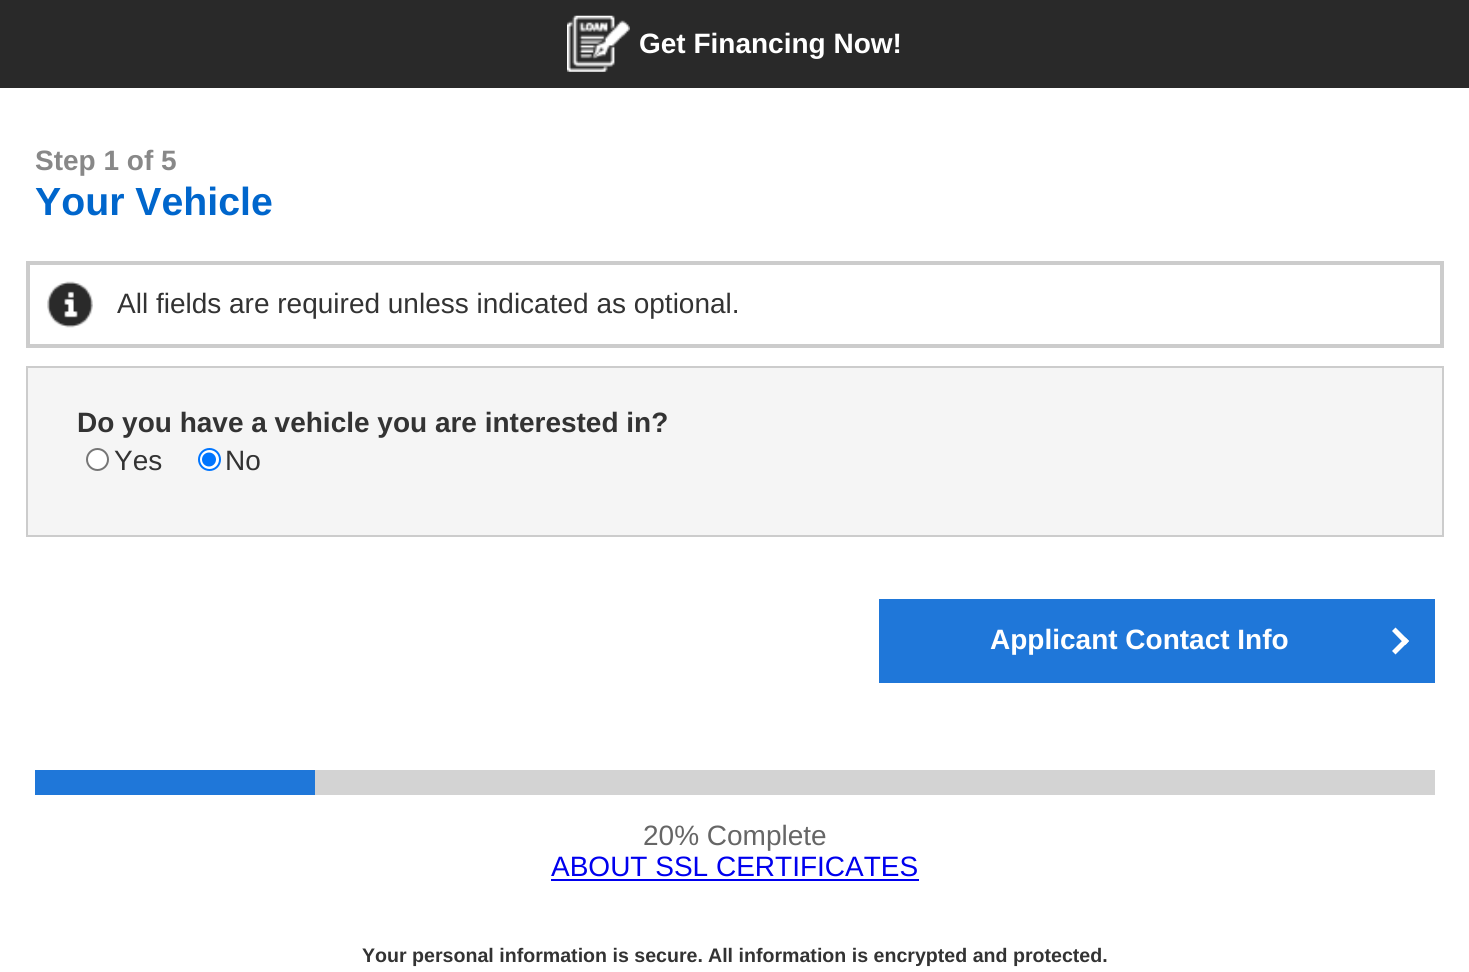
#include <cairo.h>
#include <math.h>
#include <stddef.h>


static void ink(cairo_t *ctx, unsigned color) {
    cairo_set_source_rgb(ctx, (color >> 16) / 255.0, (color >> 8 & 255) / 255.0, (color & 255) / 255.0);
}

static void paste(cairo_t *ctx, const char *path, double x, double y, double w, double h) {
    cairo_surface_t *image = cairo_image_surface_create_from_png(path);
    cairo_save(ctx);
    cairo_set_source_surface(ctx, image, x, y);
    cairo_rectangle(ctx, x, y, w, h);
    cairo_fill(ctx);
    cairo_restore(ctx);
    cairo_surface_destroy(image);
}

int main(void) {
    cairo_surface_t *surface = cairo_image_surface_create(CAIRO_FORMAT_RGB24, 1469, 972);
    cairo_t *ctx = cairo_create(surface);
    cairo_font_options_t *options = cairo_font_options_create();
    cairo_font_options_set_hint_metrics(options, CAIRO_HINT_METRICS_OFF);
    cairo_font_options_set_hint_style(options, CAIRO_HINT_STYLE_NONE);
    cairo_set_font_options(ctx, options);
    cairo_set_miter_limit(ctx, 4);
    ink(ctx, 0xFFFFFF);
    cairo_paint(ctx);
    ink(ctx, 0x292929);
    cairo_rectangle(ctx, 0, 0, 1469, 88);
    cairo_fill(ctx);
    paste(ctx, "media/1.png", 567, 15, 63, 57);
    cairo_select_font_face(ctx, "Liberation Sans", CAIRO_FONT_SLANT_NORMAL, CAIRO_FONT_WEIGHT_BOLD);
    cairo_set_font_size(ctx, 28);
    ink(ctx, 0xFFFFFF);
    cairo_move_to(ctx, 639, 53);
    cairo_show_text(ctx, "Get Financing Now!");
    ink(ctx, 0x888888);
    cairo_move_to(ctx, 35, 170);
    cairo_show_text(ctx, "Step 1 of 5");
    cairo_set_font_size(ctx, 39.25);
    ink(ctx, 0x0066CC);
    cairo_move_to(ctx, 35, 215);
    cairo_show_text(ctx, "Your Vehicle");
    cairo_rectangle(ctx, 28, 263, 1414, 83);
    ink(ctx, 0xCCCCCC);
    cairo_set_line_width(ctx, 4);
    cairo_stroke(ctx);
    paste(ctx, "media/2.png", 47, 281, 46, 47);
    cairo_select_font_face(ctx, "Liberation Sans", CAIRO_FONT_SLANT_NORMAL, CAIRO_FONT_WEIGHT_NORMAL);
    cairo_set_font_size(ctx, 28);
    ink(ctx, 0x333333);
    cairo_move_to(ctx, 117, 313);
    cairo_show_text(ctx, "All fields are required unless indicated as optional.");
    ink(ctx, 0xF5F5F5);
    cairo_rectangle(ctx, 27, 367, 1416, 169);
    cairo_fill_preserve(ctx);
    ink(ctx, 0xCCCCCC);
    cairo_set_line_width(ctx, 2);
    cairo_stroke(ctx);
    cairo_select_font_face(ctx, "Liberation Sans", CAIRO_FONT_SLANT_NORMAL, CAIRO_FONT_WEIGHT_BOLD);
    ink(ctx, 0x333333);
    cairo_move_to(ctx, 77, 432);
    cairo_show_text(ctx, "Do you have a vehicle you are interested in?");
    ink(ctx, 0xFFFFFF);
    cairo_new_path(ctx);
    cairo_arc(ctx, 97.5, 459.5, 10.5, 0, 2 * M_PI);
    cairo_fill_preserve(ctx);
    ink(ctx, 0x767676);
    cairo_stroke(ctx);
    cairo_select_font_face(ctx, "Liberation Sans", CAIRO_FONT_SLANT_NORMAL, CAIRO_FONT_WEIGHT_NORMAL);
    ink(ctx, 0x333333);
    cairo_move_to(ctx, 114, 470);
    cairo_show_text(ctx, "Yes");
    ink(ctx, 0xFFFFFF);
    cairo_new_path(ctx);
    cairo_arc(ctx, 209.5, 459.5, 10.5, 0, 2 * M_PI);
    cairo_fill_preserve(ctx);
    ink(ctx, 0x0075FF);
    cairo_stroke(ctx);
    cairo_arc(ctx, 209, 459.5, 7, 0, 2 * M_PI);
    cairo_fill(ctx);
    ink(ctx, 0x333333);
    cairo_move_to(ctx, 225, 470);
    cairo_show_text(ctx, "No");
    ink(ctx, 0x1F77D9);
    cairo_rectangle(ctx, 879, 599, 556, 84);
    cairo_fill(ctx);
    cairo_select_font_face(ctx, "Liberation Sans", CAIRO_FONT_SLANT_NORMAL, CAIRO_FONT_WEIGHT_BOLD);
    ink(ctx, 0xFFFFFF);
    cairo_move_to(ctx, 990, 649);
    cairo_show_text(ctx, "Applicant Contact Info");
    cairo_new_path(ctx);
    cairo_move_to(ctx, 1392, 631);
    cairo_line_to(ctx, 1395.5, 627.5);
    cairo_line_to(ctx, 1409, 641);
    cairo_line_to(ctx, 1405.5, 645);
    cairo_close_path(ctx);
    cairo_fill(ctx);
    cairo_new_path(ctx);
    cairo_move_to(ctx, 1392, 651);
    cairo_line_to(ctx, 1405.5, 637.5);
    cairo_line_to(ctx, 1409, 641);
    cairo_line_to(ctx, 1395.5, 654.5);
    cairo_close_path(ctx);
    cairo_fill(ctx);
    ink(ctx, 0x1F77D9);
    cairo_rectangle(ctx, 35, 770, 280, 25);
    cairo_fill(ctx);
    ink(ctx, 0xD3D3D3);
    cairo_rectangle(ctx, 315, 770, 1120, 25);
    cairo_fill(ctx);
    cairo_select_font_face(ctx, "Liberation Sans", CAIRO_FONT_SLANT_NORMAL, CAIRO_FONT_WEIGHT_NORMAL);
    ink(ctx, 0x666666);
    cairo_move_to(ctx, 643, 845);
    cairo_show_text(ctx, "20% Complete");
    ink(ctx, 0x0000EE);
    cairo_move_to(ctx, 551, 876);
    cairo_show_text(ctx, "ABOUT SSL CERTIFICATES");
    cairo_rectangle(ctx, 551, 879, 368, 2);
    cairo_fill(ctx);
    cairo_select_font_face(ctx, "Liberation Sans", CAIRO_FONT_SLANT_NORMAL, CAIRO_FONT_WEIGHT_BOLD);
    cairo_set_font_size(ctx, 19.6);
    ink(ctx, 0x333333);
    cairo_move_to(ctx, 362, 962);
    cairo_show_text(ctx, "Your personal information is secure.");
    cairo_move_to(ctx, 708, 962);
    cairo_show_text(ctx, "All information is encrypted and protected.");
    cairo_surface_write_to_png(surface, "image.png");
    cairo_font_options_destroy(options);
    cairo_destroy(ctx);
    cairo_surface_destroy(surface);
    return 0;
}
